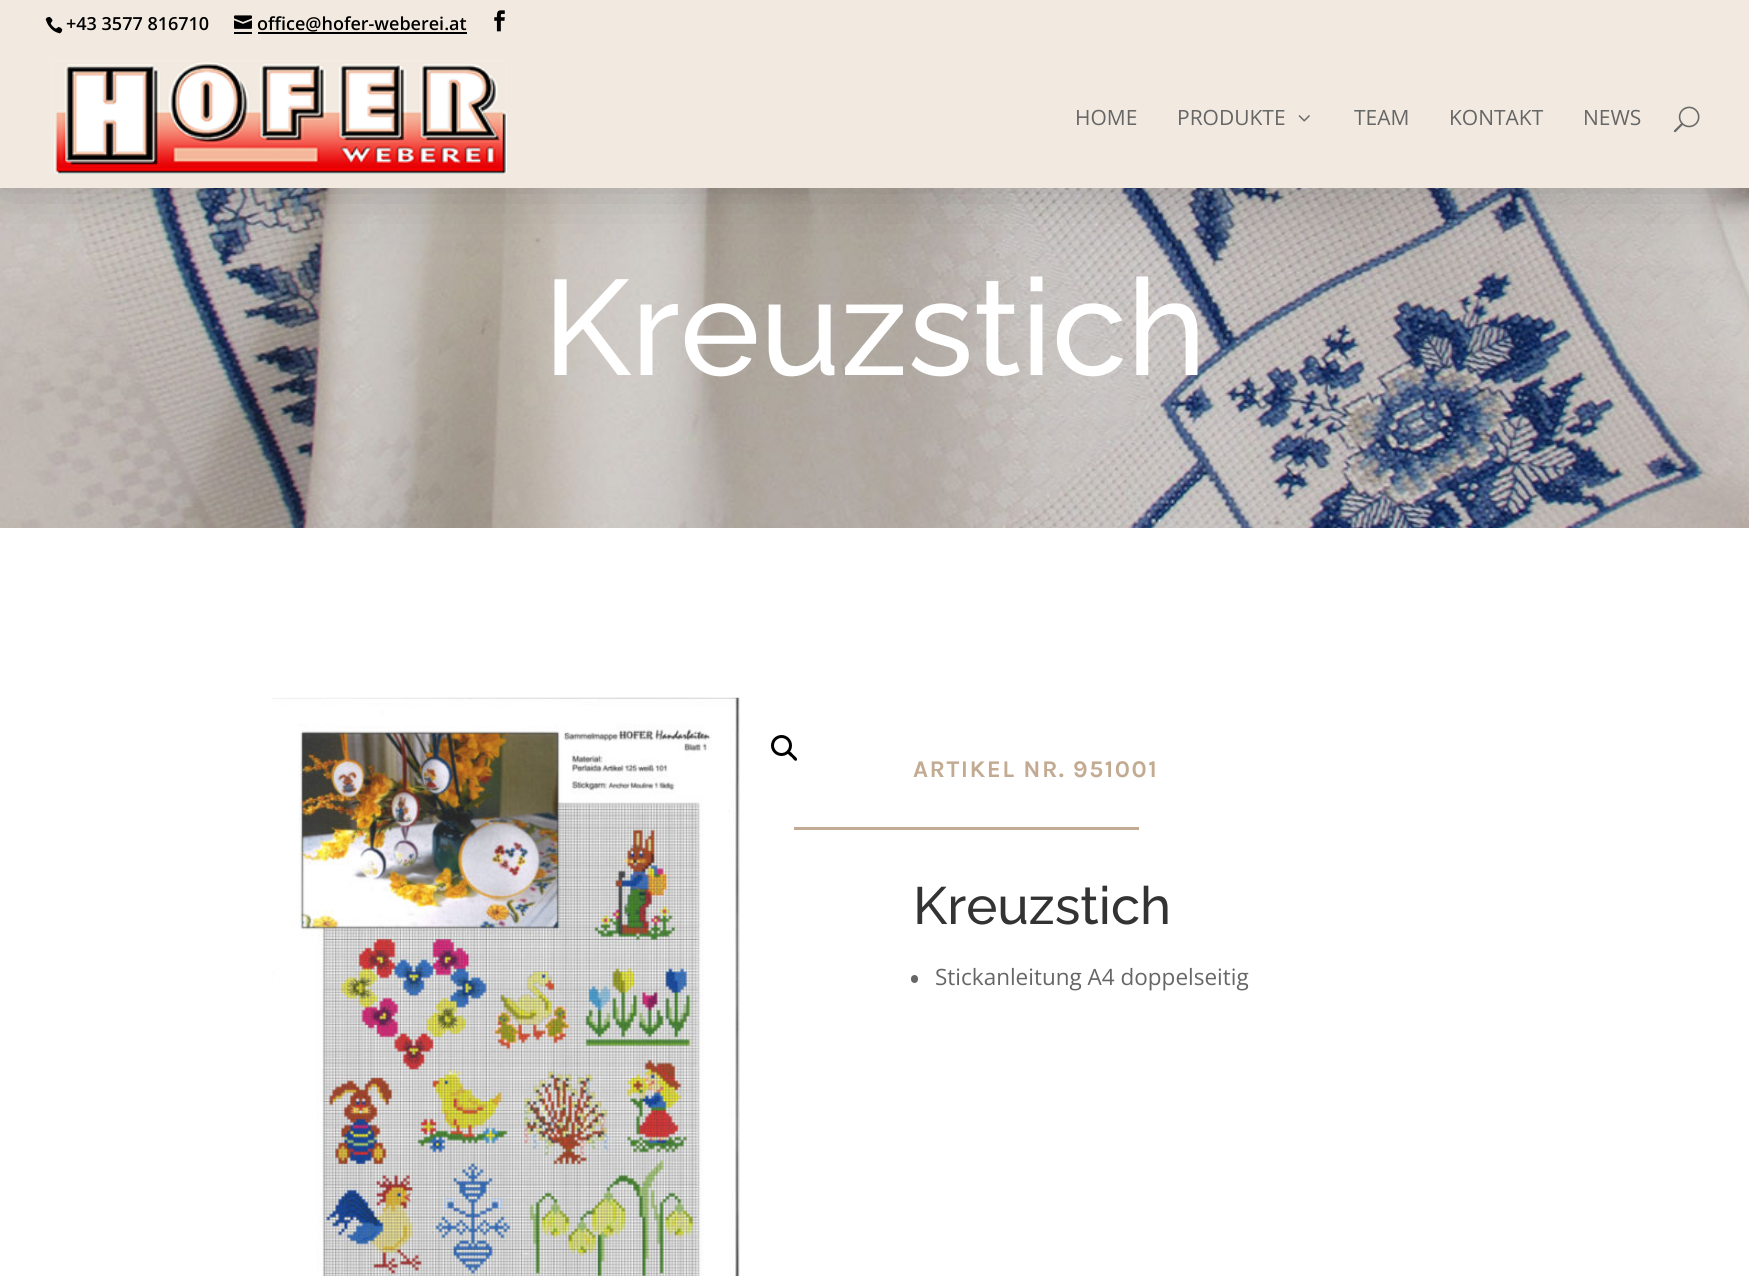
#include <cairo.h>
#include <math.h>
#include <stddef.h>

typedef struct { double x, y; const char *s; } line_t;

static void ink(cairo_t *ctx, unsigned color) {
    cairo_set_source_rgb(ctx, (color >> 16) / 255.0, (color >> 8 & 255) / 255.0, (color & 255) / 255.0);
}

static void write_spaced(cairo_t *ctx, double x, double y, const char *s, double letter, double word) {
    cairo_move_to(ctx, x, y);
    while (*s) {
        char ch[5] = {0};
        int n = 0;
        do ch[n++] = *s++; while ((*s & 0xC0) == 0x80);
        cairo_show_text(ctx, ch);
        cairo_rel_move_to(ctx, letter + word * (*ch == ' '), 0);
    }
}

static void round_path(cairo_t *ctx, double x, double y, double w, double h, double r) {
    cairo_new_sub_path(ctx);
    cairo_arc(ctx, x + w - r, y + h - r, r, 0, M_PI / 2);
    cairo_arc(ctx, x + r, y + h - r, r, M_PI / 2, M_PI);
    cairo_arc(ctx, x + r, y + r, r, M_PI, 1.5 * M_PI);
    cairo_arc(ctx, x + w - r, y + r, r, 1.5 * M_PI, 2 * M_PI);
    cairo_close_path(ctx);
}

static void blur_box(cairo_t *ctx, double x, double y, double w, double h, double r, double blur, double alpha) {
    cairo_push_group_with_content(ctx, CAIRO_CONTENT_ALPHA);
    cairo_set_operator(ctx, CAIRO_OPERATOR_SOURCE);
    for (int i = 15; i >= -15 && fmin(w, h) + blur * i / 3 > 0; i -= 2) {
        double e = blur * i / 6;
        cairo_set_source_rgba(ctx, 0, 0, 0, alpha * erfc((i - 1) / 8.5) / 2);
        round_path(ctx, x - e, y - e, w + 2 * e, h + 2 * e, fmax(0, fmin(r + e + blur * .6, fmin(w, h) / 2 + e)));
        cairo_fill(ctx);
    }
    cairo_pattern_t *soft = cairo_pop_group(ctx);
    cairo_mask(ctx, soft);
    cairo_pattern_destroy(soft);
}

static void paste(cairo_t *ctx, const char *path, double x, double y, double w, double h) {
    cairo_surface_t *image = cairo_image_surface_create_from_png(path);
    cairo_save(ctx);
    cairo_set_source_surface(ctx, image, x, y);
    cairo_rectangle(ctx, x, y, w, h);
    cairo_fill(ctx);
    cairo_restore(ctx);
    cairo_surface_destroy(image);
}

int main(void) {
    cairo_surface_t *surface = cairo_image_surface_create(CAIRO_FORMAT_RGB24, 1749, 1276);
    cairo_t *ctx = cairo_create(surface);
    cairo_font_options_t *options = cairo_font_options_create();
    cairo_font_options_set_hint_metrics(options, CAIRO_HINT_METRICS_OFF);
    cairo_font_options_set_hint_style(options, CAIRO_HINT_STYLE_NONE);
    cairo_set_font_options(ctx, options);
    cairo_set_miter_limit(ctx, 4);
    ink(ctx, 0xFFFFFF);
    cairo_paint(ctx);
    paste(ctx, "media/7.png", 0, 188, 1749, 340);
    ink(ctx, 0x000000);
    blur_box(ctx, 0, 48, 1749, 141, 0, 30, 0.2);
    ink(ctx, 0xF2EAE0);
    cairo_rectangle(ctx, 0, 0, 1749, 188);
    cairo_fill(ctx);
    paste(ctx, "media/1.png", 45, 16, 18, 18);
    cairo_select_font_face(ctx, "Open Sans SemiBold", CAIRO_FONT_SLANT_NORMAL, CAIRO_FONT_WEIGHT_NORMAL);
    cairo_set_font_size(ctx, 18);
    ink(ctx, 0x000000);
    cairo_move_to(ctx, 66, 30);
    cairo_show_text(ctx, "+43 3577 816710");
    paste(ctx, "media/2.png", 234, 15, 18, 14);
    cairo_move_to(ctx, 257, 30);
    cairo_show_text(ctx, "office@hofer-weberei.at");
    cairo_rectangle(ctx, 234, 32, 18, 2);
    cairo_fill(ctx);
    cairo_rectangle(ctx, 258, 32, 209, 2);
    cairo_fill(ctx);
    paste(ctx, "media/3.png", 494, 10, 11, 22);
    paste(ctx, "media/4.png", 51, 60, 456, 114);
    cairo_select_font_face(ctx, "Open Sans", CAIRO_FONT_SLANT_NORMAL, CAIRO_FONT_WEIGHT_NORMAL);
    cairo_set_font_size(ctx, 21);
    ink(ctx, 0x666666);
    cairo_move_to(ctx, 1075, 125);
    cairo_show_text(ctx, "HOME");
    cairo_move_to(ctx, 1177, 125);
    cairo_show_text(ctx, "PRODUKTE");
    paste(ctx, "media/5.png", 1298, 115, 12, 7);
    {
        static const line_t items[] = {
            {1354, 125, "TEAM"},
            {1449, 125, "KONTAKT"},
            {1583, 125, "NEWS"},
        };
        for (size_t i = 0; i < sizeof items / sizeof *items; i++) {
            cairo_move_to(ctx, items[i].x, items[i].y);
            cairo_show_text(ctx, items[i].s);
        }
    }
    paste(ctx, "media/6.png", 1673, 106, 27, 27);
    cairo_select_font_face(ctx, "Raleway Medium", CAIRO_FONT_SLANT_NORMAL, CAIRO_FONT_WEIGHT_NORMAL);
    cairo_set_font_size(ctx, 135);
    ink(ctx, 0xFFFFFF);
    cairo_move_to(ctx, 543, 375);
    cairo_show_text(ctx, "Kreuzstich");
    paste(ctx, "media/8.png", 272, 697, 468, 579);
    cairo_arc(ctx, 781.5, 745.5, 9, 0, 2 * M_PI);
    ink(ctx, 0x000000);
    cairo_set_line_width(ctx, 3);
    cairo_stroke(ctx);
    cairo_new_path(ctx);
    cairo_move_to(ctx, 788, 752);
    cairo_curve_to(ctx, 790, 750, 792.5, 754, 793.5, 755);
    cairo_curve_to(ctx, 794.5, 756, 798.5, 758.5, 796.5, 760.5);
    cairo_curve_to(ctx, 795, 762, 792.5, 758, 791.5, 757);
    cairo_curve_to(ctx, 790.5, 756.5, 786.5, 753.5, 788, 752);
    cairo_close_path(ctx);
    cairo_fill(ctx);
    cairo_select_font_face(ctx, "Karla", CAIRO_FONT_SLANT_NORMAL, CAIRO_FONT_WEIGHT_BOLD);
    cairo_set_font_size(ctx, 24);
    ink(ctx, 0xC2AB92);
    write_spaced(ctx, 913, 777, "ARTIKEL NR. 951001", 1.5, 0);
    cairo_rectangle(ctx, 794, 827, 345, 3);
    cairo_fill(ctx);
    cairo_select_font_face(ctx, "Raleway Medium", CAIRO_FONT_SLANT_NORMAL, CAIRO_FONT_WEIGHT_NORMAL);
    cairo_set_font_size(ctx, 52.5);
    ink(ctx, 0x333333);
    cairo_move_to(ctx, 913, 924);
    cairo_show_text(ctx, "Kreuzstich");
    ink(ctx, 0x666666);
    round_path(ctx, 911, 975, 7, 8, 3.5);
    cairo_fill(ctx);
    cairo_select_font_face(ctx, "Open Sans", CAIRO_FONT_SLANT_NORMAL, CAIRO_FONT_WEIGHT_NORMAL);
    cairo_set_font_size(ctx, 22.5);
    cairo_move_to(ctx, 935, 985);
    cairo_show_text(ctx, "Stickanleitung A4 doppelseitig");
    cairo_surface_write_to_png(surface, "image.png");
    cairo_font_options_destroy(options);
    cairo_destroy(ctx);
    cairo_surface_destroy(surface);
    return 0;
}
